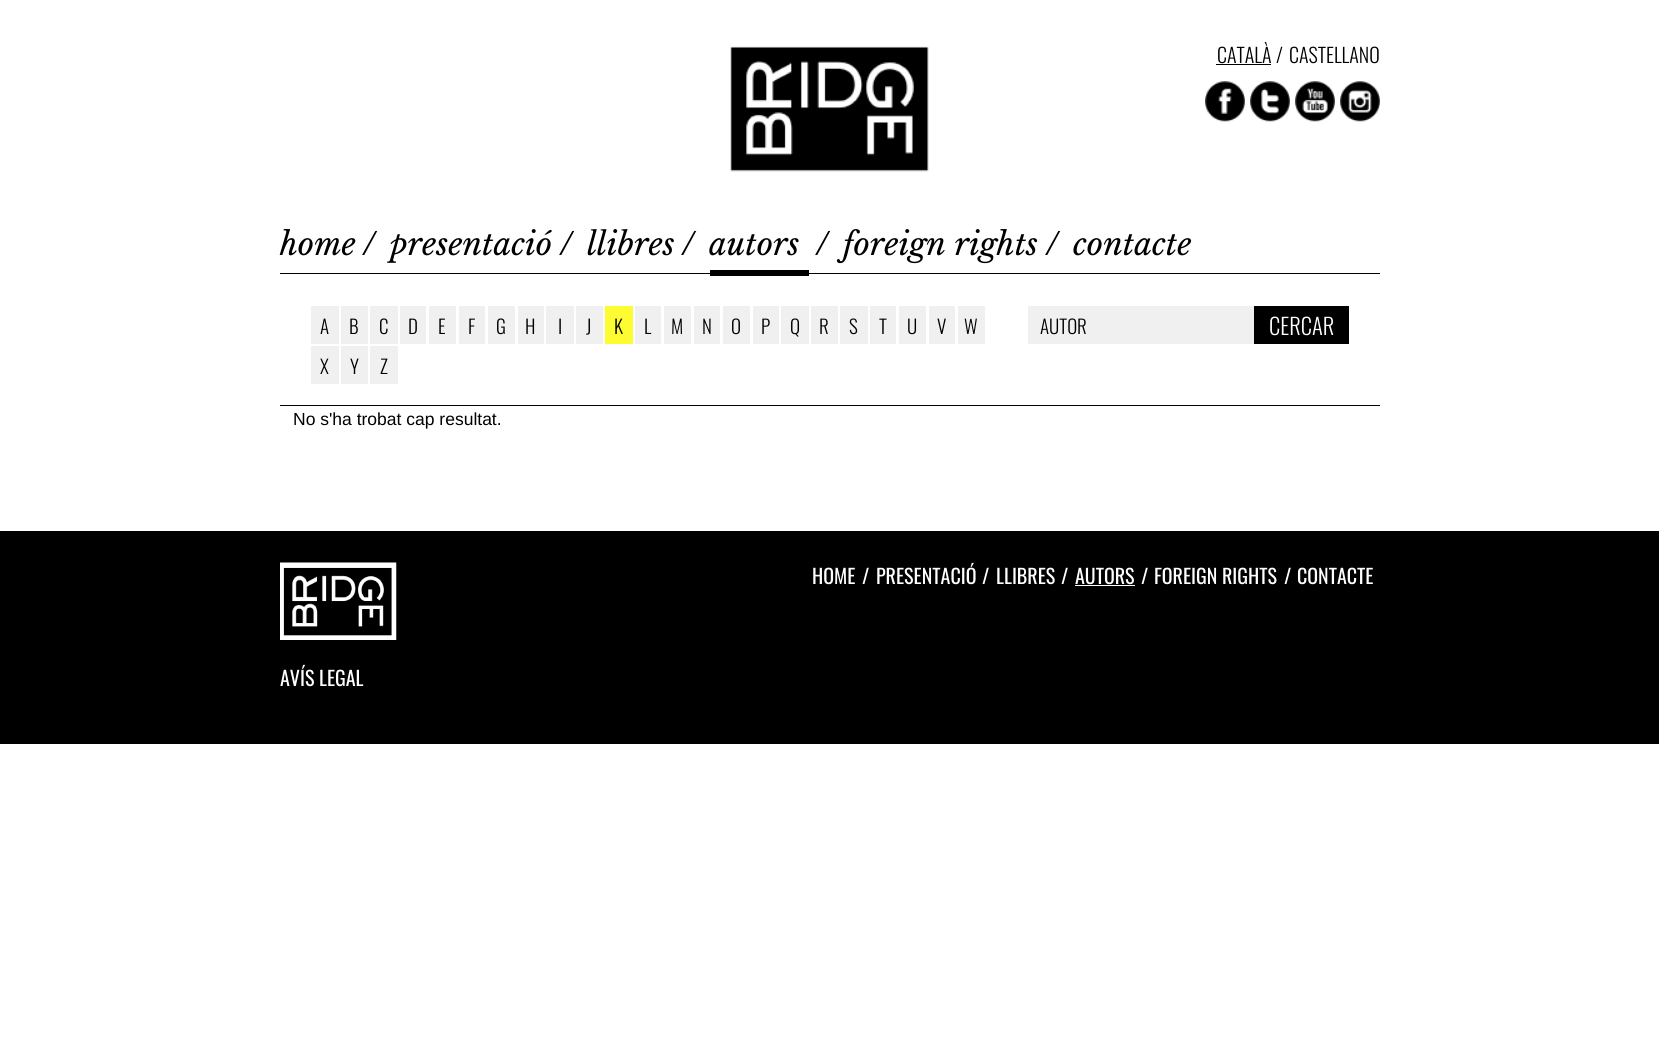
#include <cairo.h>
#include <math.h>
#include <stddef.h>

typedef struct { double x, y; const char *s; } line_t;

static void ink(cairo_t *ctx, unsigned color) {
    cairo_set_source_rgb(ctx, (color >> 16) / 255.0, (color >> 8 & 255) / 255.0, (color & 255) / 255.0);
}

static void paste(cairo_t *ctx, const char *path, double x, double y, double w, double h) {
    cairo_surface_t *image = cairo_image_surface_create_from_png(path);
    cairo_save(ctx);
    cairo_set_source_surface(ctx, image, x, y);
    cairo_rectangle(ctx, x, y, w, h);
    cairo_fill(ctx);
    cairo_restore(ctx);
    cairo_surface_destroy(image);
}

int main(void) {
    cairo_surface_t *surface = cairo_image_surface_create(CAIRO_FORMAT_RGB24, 1659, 1050);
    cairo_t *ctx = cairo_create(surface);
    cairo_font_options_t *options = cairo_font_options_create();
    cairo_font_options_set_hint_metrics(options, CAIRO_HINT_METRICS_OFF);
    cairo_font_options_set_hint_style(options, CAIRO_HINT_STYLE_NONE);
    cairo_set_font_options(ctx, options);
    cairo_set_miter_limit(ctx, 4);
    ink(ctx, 0xFFFFFF);
    cairo_paint(ctx);
    paste(ctx, "media/1.png", 730, 46, 199, 126);
    cairo_select_font_face(ctx, "Oswald Light", CAIRO_FONT_SLANT_NORMAL, CAIRO_FONT_WEIGHT_NORMAL);
    cairo_set_font_size(ctx, 20);
    ink(ctx, 0x000000);
    cairo_move_to(ctx, 1217, 63);
    cairo_show_text(ctx, "CATALÀ");
    cairo_rectangle(ctx, 1216, 64, 55, 1);
    cairo_fill(ctx);
    cairo_move_to(ctx, 1276, 63);
    cairo_show_text(ctx, "/");
    cairo_move_to(ctx, 1289, 63);
    cairo_show_text(ctx, "CASTELLANO");
    paste(ctx, "media/2.png", 1205, 81, 40, 41);
    paste(ctx, "media/3.png", 1250, 81, 40, 41);
    paste(ctx, "media/4.png", 1295, 81, 40, 41);
    paste(ctx, "media/5.png", 1340, 81, 40, 41);
    cairo_rectangle(ctx, 280, 273, 1100, 1);
    cairo_fill(ctx);
    cairo_select_font_face(ctx, "Libre Baskerville", CAIRO_FONT_SLANT_ITALIC, CAIRO_FONT_WEIGHT_NORMAL);
    cairo_set_font_size(ctx, 31.25);
    {
        static const line_t items[] = {
            {280, 255, "home"},
            {363, 255, "/"},
            {390, 255, "presentació"},
            {560, 255, "/"},
            {587, 255, "llibres"},
            {682, 255, "/"},
            {709, 255, "autors"},
        };
        for (size_t i = 0; i < sizeof items / sizeof *items; i++) {
            cairo_move_to(ctx, items[i].x, items[i].y);
            cairo_show_text(ctx, items[i].s);
        }
    }
    cairo_rectangle(ctx, 710, 270, 99, 6);
    cairo_fill(ctx);
    {
        static const line_t items[] = {
            {816, 255, "/"},
            {843, 255, "foreign rights"},
            {1046, 255, "/"},
            {1073, 255, "contacte"},
        };
        for (size_t i = 0; i < sizeof items / sizeof *items; i++) {
            cairo_move_to(ctx, items[i].x, items[i].y);
            cairo_show_text(ctx, items[i].s);
        }
    }
    cairo_rectangle(ctx, 280, 405, 1100, 1);
    cairo_fill(ctx);
    ink(ctx, 0xF0F0F0);
    cairo_rectangle(ctx, 311, 306, 28, 38);
    cairo_fill(ctx);
    cairo_select_font_face(ctx, "Oswald Light", CAIRO_FONT_SLANT_NORMAL, CAIRO_FONT_WEIGHT_NORMAL);
    cairo_set_font_size(ctx, 19);
    ink(ctx, 0x000000);
    cairo_move_to(ctx, 320, 334);
    cairo_show_text(ctx, "A");
    ink(ctx, 0xF0F0F0);
    cairo_rectangle(ctx, 341, 306, 27, 38);
    cairo_fill(ctx);
    ink(ctx, 0x000000);
    cairo_move_to(ctx, 349, 334);
    cairo_show_text(ctx, "B");
    ink(ctx, 0xF0F0F0);
    cairo_rectangle(ctx, 370, 306, 28, 38);
    cairo_fill(ctx);
    ink(ctx, 0x000000);
    cairo_move_to(ctx, 379, 334);
    cairo_show_text(ctx, "C");
    ink(ctx, 0xF0F0F0);
    cairo_rectangle(ctx, 400, 306, 26, 38);
    cairo_fill(ctx);
    ink(ctx, 0x000000);
    cairo_move_to(ctx, 408, 334);
    cairo_show_text(ctx, "D");
    ink(ctx, 0xF0F0F0);
    cairo_rectangle(ctx, 429, 306, 27, 38);
    cairo_fill(ctx);
    ink(ctx, 0x000000);
    cairo_move_to(ctx, 438, 334);
    cairo_show_text(ctx, "E");
    ink(ctx, 0xF0F0F0);
    cairo_rectangle(ctx, 459, 306, 26, 38);
    cairo_fill(ctx);
    ink(ctx, 0x000000);
    cairo_move_to(ctx, 468, 334);
    cairo_show_text(ctx, "F");
    ink(ctx, 0xF0F0F0);
    cairo_rectangle(ctx, 488, 306, 27, 38);
    cairo_fill(ctx);
    ink(ctx, 0x000000);
    cairo_move_to(ctx, 496, 334);
    cairo_show_text(ctx, "G");
    ink(ctx, 0xF0F0F0);
    cairo_rectangle(ctx, 518, 306, 26, 38);
    cairo_fill(ctx);
    ink(ctx, 0x000000);
    cairo_move_to(ctx, 525, 334);
    cairo_show_text(ctx, "H");
    ink(ctx, 0xF0F0F0);
    cairo_rectangle(ctx, 546, 306, 28, 38);
    cairo_fill(ctx);
    ink(ctx, 0x000000);
    cairo_move_to(ctx, 558, 334);
    cairo_show_text(ctx, "I");
    ink(ctx, 0xF0F0F0);
    cairo_rectangle(ctx, 576, 306, 27, 38);
    cairo_fill(ctx);
    ink(ctx, 0x000000);
    cairo_move_to(ctx, 586, 334);
    cairo_show_text(ctx, "J");
    ink(ctx, 0xFDFC32);
    cairo_rectangle(ctx, 605, 306, 28, 38);
    cairo_fill(ctx);
    ink(ctx, 0x000000);
    cairo_move_to(ctx, 614, 334);
    cairo_show_text(ctx, "K");
    ink(ctx, 0xF0F0F0);
    cairo_rectangle(ctx, 635, 306, 26, 38);
    cairo_fill(ctx);
    ink(ctx, 0x000000);
    cairo_move_to(ctx, 644, 334);
    cairo_show_text(ctx, "L");
    ink(ctx, 0xF0F0F0);
    cairo_rectangle(ctx, 664, 306, 27, 38);
    cairo_fill(ctx);
    ink(ctx, 0x000000);
    cairo_move_to(ctx, 671, 334);
    cairo_show_text(ctx, "M");
    ink(ctx, 0xF0F0F0);
    cairo_rectangle(ctx, 694, 306, 26, 38);
    cairo_fill(ctx);
    ink(ctx, 0x000000);
    cairo_move_to(ctx, 702, 334);
    cairo_show_text(ctx, "N");
    ink(ctx, 0xF0F0F0);
    cairo_rectangle(ctx, 723, 306, 27, 38);
    cairo_fill(ctx);
    ink(ctx, 0x000000);
    cairo_move_to(ctx, 731, 334);
    cairo_show_text(ctx, "O");
    ink(ctx, 0xF0F0F0);
    cairo_rectangle(ctx, 753, 306, 26, 38);
    cairo_fill(ctx);
    ink(ctx, 0x000000);
    cairo_move_to(ctx, 761, 334);
    cairo_show_text(ctx, "P");
    ink(ctx, 0xF0F0F0);
    cairo_rectangle(ctx, 781, 306, 28, 38);
    cairo_fill(ctx);
    ink(ctx, 0x000000);
    cairo_move_to(ctx, 790, 334);
    cairo_show_text(ctx, "Q");
    ink(ctx, 0xF0F0F0);
    cairo_rectangle(ctx, 811, 306, 27, 38);
    cairo_fill(ctx);
    ink(ctx, 0x000000);
    cairo_move_to(ctx, 819, 334);
    cairo_show_text(ctx, "R");
    ink(ctx, 0xF0F0F0);
    cairo_rectangle(ctx, 840, 306, 28, 38);
    cairo_fill(ctx);
    ink(ctx, 0x000000);
    cairo_move_to(ctx, 849, 334);
    cairo_show_text(ctx, "S");
    ink(ctx, 0xF0F0F0);
    cairo_rectangle(ctx, 870, 306, 26, 38);
    cairo_fill(ctx);
    ink(ctx, 0x000000);
    cairo_move_to(ctx, 879, 334);
    cairo_show_text(ctx, "T");
    ink(ctx, 0xF0F0F0);
    cairo_rectangle(ctx, 899, 306, 27, 38);
    cairo_fill(ctx);
    ink(ctx, 0x000000);
    cairo_move_to(ctx, 907, 334);
    cairo_show_text(ctx, "U");
    ink(ctx, 0xF0F0F0);
    cairo_rectangle(ctx, 929, 306, 26, 38);
    cairo_fill(ctx);
    ink(ctx, 0x000000);
    cairo_move_to(ctx, 937, 334);
    cairo_show_text(ctx, "V");
    ink(ctx, 0xF0F0F0);
    cairo_rectangle(ctx, 958, 306, 27, 38);
    cairo_fill(ctx);
    ink(ctx, 0x000000);
    cairo_move_to(ctx, 964, 334);
    cairo_show_text(ctx, "W");
    ink(ctx, 0xF0F0F0);
    cairo_rectangle(ctx, 311, 346, 28, 38);
    cairo_fill(ctx);
    ink(ctx, 0x000000);
    cairo_move_to(ctx, 320, 374);
    cairo_show_text(ctx, "X");
    ink(ctx, 0xF0F0F0);
    cairo_rectangle(ctx, 341, 346, 27, 38);
    cairo_fill(ctx);
    ink(ctx, 0x000000);
    cairo_move_to(ctx, 350, 374);
    cairo_show_text(ctx, "Y");
    ink(ctx, 0xF0F0F0);
    cairo_rectangle(ctx, 370, 346, 28, 38);
    cairo_fill(ctx);
    ink(ctx, 0x000000);
    cairo_move_to(ctx, 380, 374);
    cairo_show_text(ctx, "Z");
    ink(ctx, 0xF0F0F0);
    cairo_rectangle(ctx, 1028, 306, 226, 38);
    cairo_fill(ctx);
    ink(ctx, 0x000000);
    cairo_move_to(ctx, 1040, 334);
    cairo_show_text(ctx, "AUTOR");
    cairo_rectangle(ctx, 1254, 306, 95, 38);
    cairo_fill(ctx);
    cairo_set_font_size(ctx, 22.5);
    ink(ctx, 0xFFFFFF);
    cairo_move_to(ctx, 1269, 335);
    cairo_show_text(ctx, "CERCAR");
    cairo_select_font_face(ctx, "Liberation Sans", CAIRO_FONT_SLANT_NORMAL, CAIRO_FONT_WEIGHT_NORMAL);
    cairo_set_font_size(ctx, 17.5);
    ink(ctx, 0x000000);
    cairo_move_to(ctx, 293, 425);
    cairo_show_text(ctx, "No s'ha trobat cap resultat.");
    cairo_rectangle(ctx, 0, 531, 1659, 213);
    cairo_fill(ctx);
    cairo_select_font_face(ctx, "Oswald", CAIRO_FONT_SLANT_NORMAL, CAIRO_FONT_WEIGHT_NORMAL);
    cairo_set_font_size(ctx, 20);
    ink(ctx, 0xFFFFFF);
    {
        static const line_t items[] = {
            {812, 584, "HOME"},
            {862, 584, "/"},
            {876, 584, "PRESENTACIÓ"},
            {982, 584, "/"},
            {996, 584, "LLIBRES"},
            {1061, 584, "/"},
            {1075, 584, "AUTORS"},
        };
        for (size_t i = 0; i < sizeof items / sizeof *items; i++) {
            cairo_move_to(ctx, items[i].x, items[i].y);
            cairo_show_text(ctx, items[i].s);
        }
    }
    cairo_rectangle(ctx, 1075, 585, 60, 1);
    cairo_fill(ctx);
    {
        static const line_t items[] = {
            {1141, 584, "/"},
            {1154, 584, "FOREIGN RIGHTS"},
            {1284, 584, "/"},
            {1297, 584, "CONTACTE"},
        };
        for (size_t i = 0; i < sizeof items / sizeof *items; i++) {
            cairo_move_to(ctx, items[i].x, items[i].y);
            cairo_show_text(ctx, items[i].s);
        }
    }
    paste(ctx, "media/6.png", 280, 562, 117, 78);
    cairo_move_to(ctx, 280, 686);
    cairo_show_text(ctx, "AVÍS LEGAL");
    cairo_surface_write_to_png(surface, "image.png");
    cairo_font_options_destroy(options);
    cairo_destroy(ctx);
    cairo_surface_destroy(surface);
    return 0;
}
